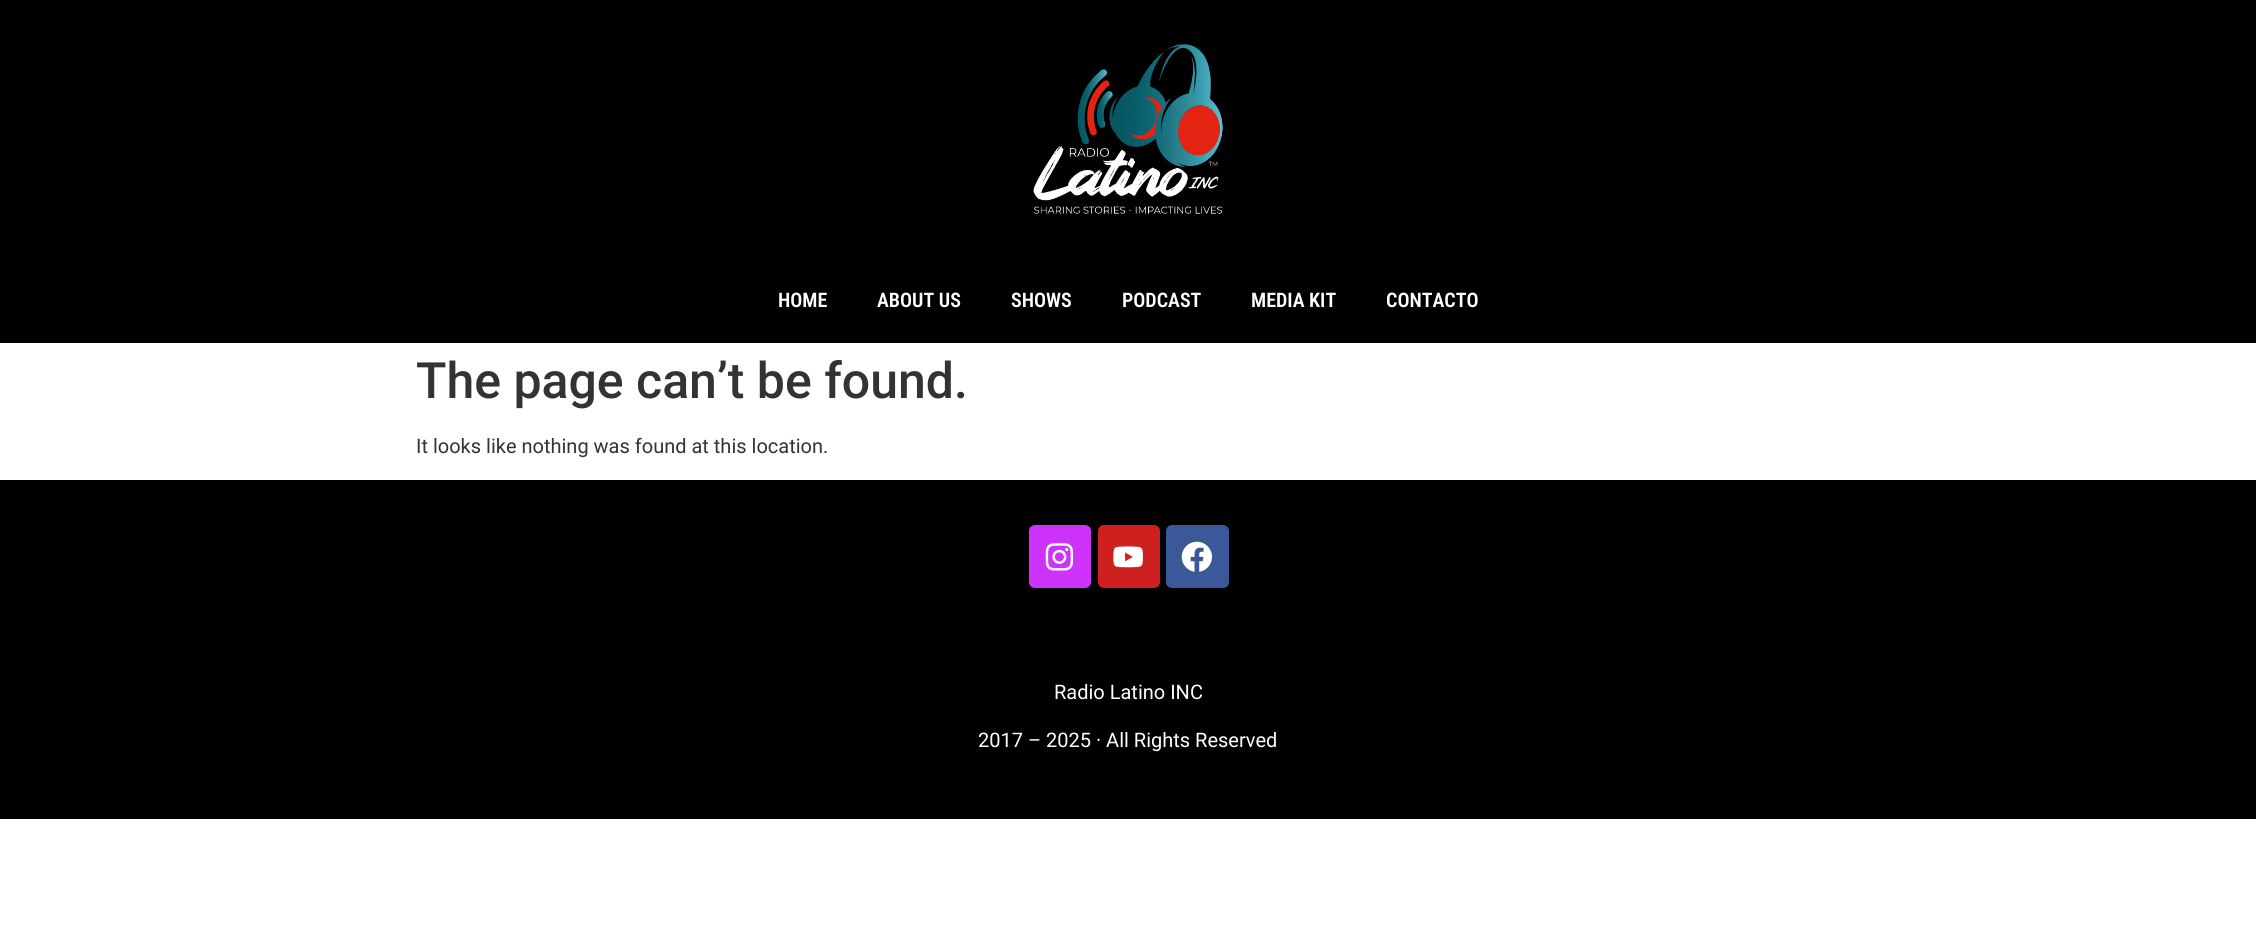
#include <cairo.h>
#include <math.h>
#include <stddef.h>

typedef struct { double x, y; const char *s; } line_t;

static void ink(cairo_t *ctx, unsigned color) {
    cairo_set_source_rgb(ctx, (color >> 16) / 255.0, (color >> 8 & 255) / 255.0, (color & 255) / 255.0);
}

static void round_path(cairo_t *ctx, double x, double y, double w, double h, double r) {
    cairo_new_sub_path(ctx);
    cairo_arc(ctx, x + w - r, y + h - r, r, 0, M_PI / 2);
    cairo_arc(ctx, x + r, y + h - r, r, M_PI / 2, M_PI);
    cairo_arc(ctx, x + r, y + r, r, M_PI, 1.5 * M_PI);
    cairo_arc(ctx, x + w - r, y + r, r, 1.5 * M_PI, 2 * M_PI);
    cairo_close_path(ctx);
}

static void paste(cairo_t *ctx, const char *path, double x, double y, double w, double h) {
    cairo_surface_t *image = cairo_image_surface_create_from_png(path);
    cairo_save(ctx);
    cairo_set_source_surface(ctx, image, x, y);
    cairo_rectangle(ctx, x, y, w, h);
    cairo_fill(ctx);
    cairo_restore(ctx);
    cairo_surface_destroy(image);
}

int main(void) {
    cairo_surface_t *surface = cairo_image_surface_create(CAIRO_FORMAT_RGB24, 2256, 936);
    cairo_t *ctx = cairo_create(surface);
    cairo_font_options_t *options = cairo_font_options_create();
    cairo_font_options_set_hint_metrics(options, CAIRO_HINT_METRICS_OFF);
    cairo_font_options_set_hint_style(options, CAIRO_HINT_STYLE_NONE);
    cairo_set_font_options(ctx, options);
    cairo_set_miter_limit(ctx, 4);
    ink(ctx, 0xFFFFFF);
    cairo_paint(ctx);
    ink(ctx, 0x000000);
    cairo_rectangle(ctx, 0, 0, 2256, 343);
    cairo_fill(ctx);
    paste(ctx, "media/1.png", 1033, 44, 190, 170);
    cairo_select_font_face(ctx, "Roboto Condensed SemiBold", CAIRO_FONT_SLANT_NORMAL, CAIRO_FONT_WEIGHT_NORMAL);
    cairo_set_font_size(ctx, 20);
    ink(ctx, 0xFFFFFF);
    {
        static const line_t items[] = {
            {778, 307, "HOME"},
            {877, 307, "ABOUT US"},
            {1011, 307, "SHOWS"},
            {1122, 307, "PODCAST"},
            {1251, 307, "MEDIA KIT"},
            {1386, 307, "CONTACTO"},
        };
        for (size_t i = 0; i < sizeof items / sizeof *items; i++) {
            cairo_move_to(ctx, items[i].x, items[i].y);
            cairo_show_text(ctx, items[i].s);
        }
    }
    cairo_select_font_face(ctx, "Roboto Medium", CAIRO_FONT_SLANT_NORMAL, CAIRO_FONT_WEIGHT_NORMAL);
    cairo_set_font_size(ctx, 50);
    ink(ctx, 0x333333);
    cairo_move_to(ctx, 416, 398);
    cairo_show_text(ctx, "The page can’t be found.");
    cairo_select_font_face(ctx, "Roboto", CAIRO_FONT_SLANT_NORMAL, CAIRO_FONT_WEIGHT_NORMAL);
    cairo_set_font_size(ctx, 20);
    cairo_move_to(ctx, 416, 453);
    cairo_show_text(ctx, "It looks like nothing was found at this location.");
    ink(ctx, 0x000000);
    cairo_rectangle(ctx, 0, 480, 2256, 339);
    cairo_fill(ctx);
    ink(ctx, 0xCE33FB);
    round_path(ctx, 1029, 525, 62, 63, 6);
    cairo_fill(ctx);
    paste(ctx, "media/2.png", 1045, 543, 29, 28);
    ink(ctx, 0xCD201F);
    round_path(ctx, 1098, 525, 62, 63, 6);
    cairo_fill(ctx);
    paste(ctx, "media/3.png", 1113, 546, 30, 22);
    ink(ctx, 0x3B5998);
    round_path(ctx, 1166, 525, 63, 63, 6);
    cairo_fill(ctx);
    paste(ctx, "media/4.png", 1181, 541, 31, 31);
    ink(ctx, 0xFFFFFF);
    cairo_move_to(ctx, 1054, 699);
    cairo_show_text(ctx, "Radio Latino INC");
    cairo_move_to(ctx, 978, 747);
    cairo_show_text(ctx, "2017 – 2025 · All Rights Reserved");
    cairo_surface_write_to_png(surface, "image.png");
    cairo_font_options_destroy(options);
    cairo_destroy(ctx);
    cairo_surface_destroy(surface);
    return 0;
}
